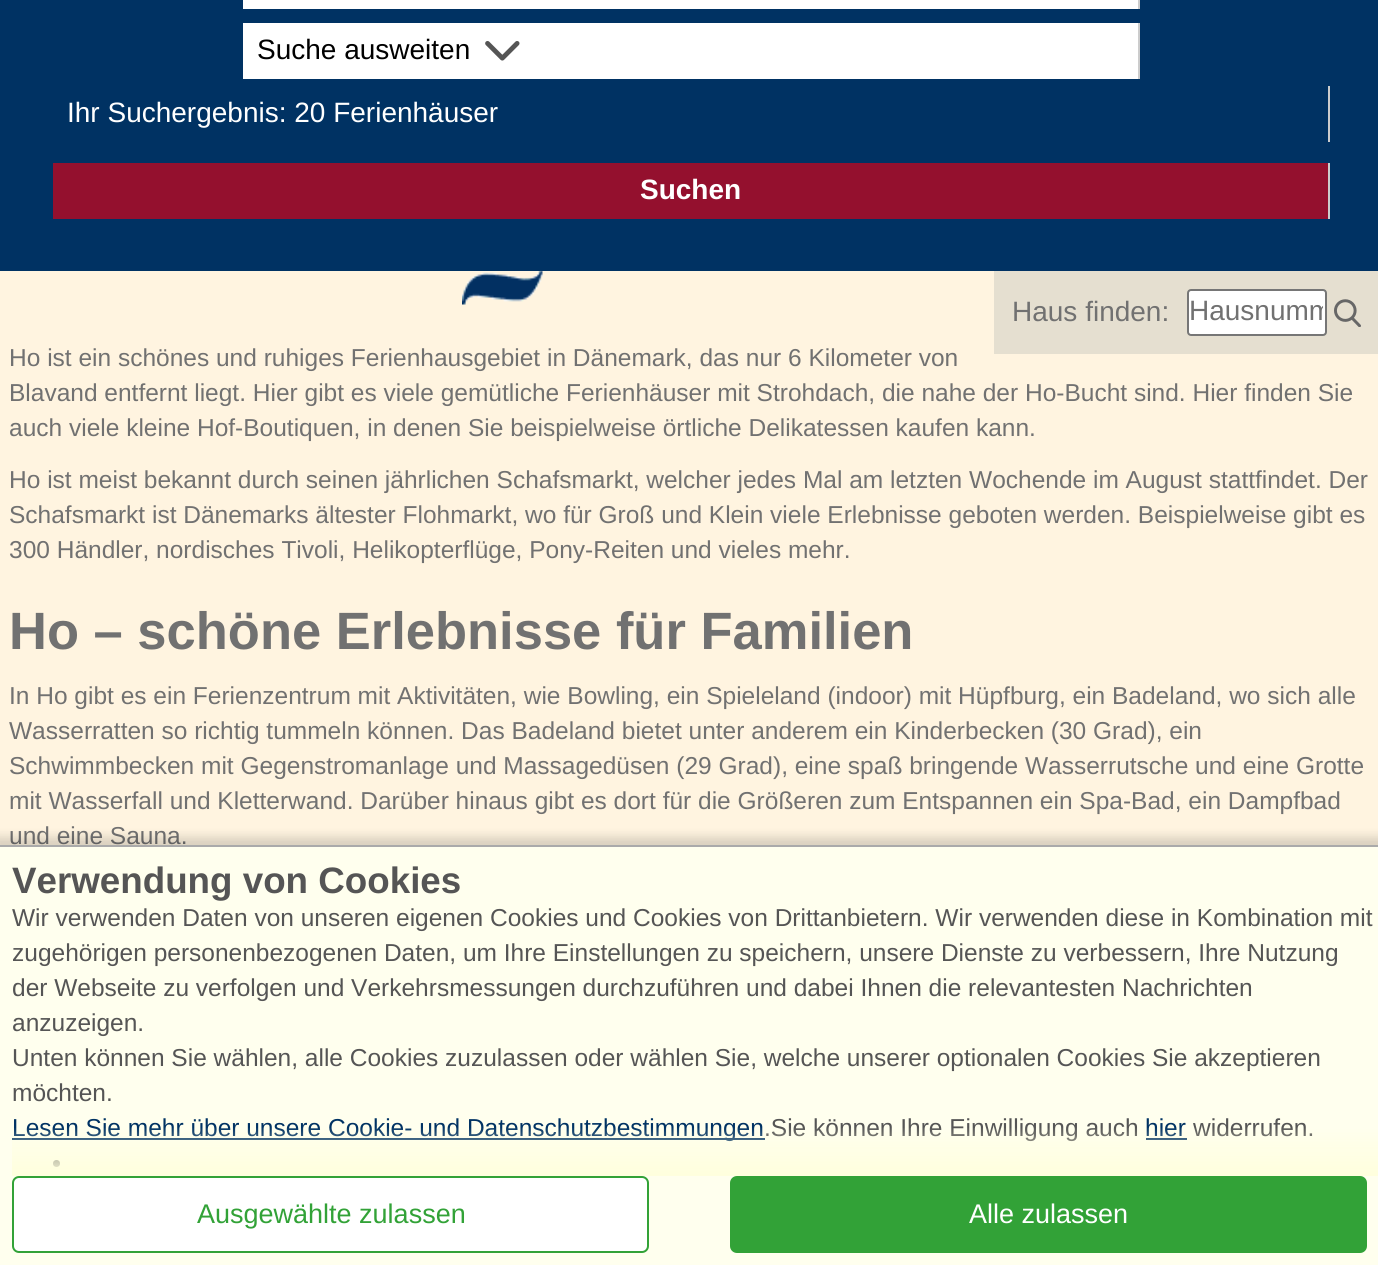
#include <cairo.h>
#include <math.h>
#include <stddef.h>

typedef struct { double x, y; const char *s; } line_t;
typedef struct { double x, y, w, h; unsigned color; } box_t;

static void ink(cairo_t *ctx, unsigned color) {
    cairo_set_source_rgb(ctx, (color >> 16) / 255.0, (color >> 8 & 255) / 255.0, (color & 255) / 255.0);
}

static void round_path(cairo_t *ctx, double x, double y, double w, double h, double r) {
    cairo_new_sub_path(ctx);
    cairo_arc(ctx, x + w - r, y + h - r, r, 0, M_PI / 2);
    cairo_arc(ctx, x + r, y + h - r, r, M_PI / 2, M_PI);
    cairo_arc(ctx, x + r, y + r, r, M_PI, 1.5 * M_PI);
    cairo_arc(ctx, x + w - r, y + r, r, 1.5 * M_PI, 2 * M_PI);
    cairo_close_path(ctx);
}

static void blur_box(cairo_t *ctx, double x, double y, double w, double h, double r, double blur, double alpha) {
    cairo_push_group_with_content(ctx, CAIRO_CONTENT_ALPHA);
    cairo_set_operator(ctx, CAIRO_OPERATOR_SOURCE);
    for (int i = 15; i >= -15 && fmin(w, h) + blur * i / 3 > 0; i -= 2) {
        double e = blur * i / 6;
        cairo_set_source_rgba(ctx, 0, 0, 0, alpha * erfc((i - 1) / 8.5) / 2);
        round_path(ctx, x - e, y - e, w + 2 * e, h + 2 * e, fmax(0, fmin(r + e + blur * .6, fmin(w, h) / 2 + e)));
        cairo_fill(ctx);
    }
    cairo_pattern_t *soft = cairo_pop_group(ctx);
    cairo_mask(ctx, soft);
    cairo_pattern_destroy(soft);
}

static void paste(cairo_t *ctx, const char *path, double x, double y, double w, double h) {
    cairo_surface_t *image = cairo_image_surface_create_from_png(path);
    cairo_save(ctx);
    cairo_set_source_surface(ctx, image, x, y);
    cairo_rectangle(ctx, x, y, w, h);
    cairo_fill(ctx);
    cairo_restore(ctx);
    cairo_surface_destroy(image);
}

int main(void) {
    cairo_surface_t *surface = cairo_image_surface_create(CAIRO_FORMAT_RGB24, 1378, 1265);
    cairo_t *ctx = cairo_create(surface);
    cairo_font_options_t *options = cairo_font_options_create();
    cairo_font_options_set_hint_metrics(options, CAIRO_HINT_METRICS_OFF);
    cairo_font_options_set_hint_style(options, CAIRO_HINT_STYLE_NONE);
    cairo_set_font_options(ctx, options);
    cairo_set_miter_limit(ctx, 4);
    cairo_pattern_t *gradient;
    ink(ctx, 0xFFF4E0);
    cairo_paint(ctx);
    {
        static const box_t items[] = {
            {0, 0, 1378, 271, 0x003263},
            {243, 0, 895, 9, 0xFFFFFF},
            {1138, 0, 2, 9, 0xCCCCCC},
            {243, 23, 895, 56, 0xFFFFFF},
            {1138, 23, 2, 56, 0xCCCCCC},
        };
        for (size_t i = 0; i < sizeof items / sizeof *items; i++) {
            ink(ctx, items[i].color);
            cairo_rectangle(ctx, items[i].x, items[i].y, items[i].w, items[i].h);
            cairo_fill(ctx);
        }
    }
    cairo_select_font_face(ctx, "Liberation Sans", CAIRO_FONT_SLANT_NORMAL, CAIRO_FONT_WEIGHT_NORMAL);
    cairo_set_font_size(ctx, 28);
    ink(ctx, 0x000000);
    cairo_move_to(ctx, 257, 59);
    cairo_show_text(ctx, "Suche ausweiten");
    paste(ctx, "media/1.png", 485, 41, 35, 20);
    ink(ctx, 0xCCCCCC);
    cairo_rectangle(ctx, 1328, 86, 2, 56);
    cairo_fill(ctx);
    ink(ctx, 0xFFFFFF);
    cairo_move_to(ctx, 67, 122);
    cairo_show_text(ctx, "Ihr Suchergebnis: 20 Ferienhäuser");
    ink(ctx, 0xCCCCCC);
    cairo_rectangle(ctx, 1328, 163, 2, 56);
    cairo_fill(ctx);
    ink(ctx, 0x94102E);
    cairo_rectangle(ctx, 53, 163, 1275, 56);
    cairo_fill(ctx);
    cairo_select_font_face(ctx, "Liberation Sans", CAIRO_FONT_SLANT_NORMAL, CAIRO_FONT_WEIGHT_BOLD);
    ink(ctx, 0xFFFFFF);
    cairo_move_to(ctx, 640, 199);
    cairo_show_text(ctx, "Suchen");
    ink(ctx, 0xE5DFD0);
    cairo_rectangle(ctx, 994, 271, 384, 83);
    cairo_fill(ctx);
    cairo_select_font_face(ctx, "Liberation Sans", CAIRO_FONT_SLANT_NORMAL, CAIRO_FONT_WEIGHT_NORMAL);
    ink(ctx, 0x717171);
    cairo_move_to(ctx, 1012, 321);
    cairo_show_text(ctx, "Haus finden:");
    ink(ctx, 0xFFFFFF);
    round_path(ctx, 1188, 290, 138, 45, 3);
    cairo_fill_preserve(ctx);
    ink(ctx, 0x767676);
    cairo_stroke(ctx);
    cairo_save(ctx);
    cairo_rectangle(ctx, 1190, 296, 133, 31);
    cairo_clip(ctx);
    ink(ctx, 0x717171);
    cairo_move_to(ctx, 1189, 320);
    cairo_show_text(ctx, "Hausnumm");
    cairo_restore(ctx);
    paste(ctx, "media/2.png", 1334, 299, 27, 28);
    paste(ctx, "media/3.png", 462, 271, 81, 34);
    cairo_set_font_size(ctx, 24.5);
    ink(ctx, 0x717171);
    {
        static const line_t items[] = {
            {9, 366, "Ho ist ein schönes und ruhiges Ferienhausgebiet in Dänemark, das nur 6 Kilometer von"},
            {9, 401, "Blavand entfernt liegt. Hier gibt es viele gemütliche Ferienhäuser mit Strohdach, die nahe der Ho-Bucht sind. Hier finden Sie"},
            {9, 436, "auch viele kleine Hof-Boutiquen, in denen Sie beispielweise örtliche Delikatessen kaufen kann."},
            {9, 488, "Ho ist meist bekannt durch seinen jährlichen Schafsmarkt, welcher jedes Mal am letzten Wochende im August stattfindet. Der"},
            {9, 523, "Schafsmarkt ist Dänemarks ältester Flohmarkt, wo für Groß und Klein viele Erlebnisse geboten werden. Beispielweise gibt es"},
            {9, 558, "300 Händler, nordisches Tivoli, Helikopterflüge, Pony-Reiten und vieles mehr."},
        };
        for (size_t i = 0; i < sizeof items / sizeof *items; i++) {
            cairo_move_to(ctx, items[i].x, items[i].y);
            cairo_show_text(ctx, items[i].s);
        }
    }
    cairo_select_font_face(ctx, "Liberation Sans", CAIRO_FONT_SLANT_NORMAL, CAIRO_FONT_WEIGHT_BOLD);
    cairo_set_font_size(ctx, 52.5);
    cairo_move_to(ctx, 9, 649);
    cairo_show_text(ctx, "Ho – schöne Erlebnisse für Familien");
    cairo_select_font_face(ctx, "Liberation Sans", CAIRO_FONT_SLANT_NORMAL, CAIRO_FONT_WEIGHT_NORMAL);
    cairo_set_font_size(ctx, 24.5);
    {
        static const line_t items[] = {
            {9, 704, "In Ho gibt es ein Ferienzentrum mit Aktivitäten, wie Bowling, ein Spieleland (indoor) mit Hüpfburg, ein Badeland, wo sich alle"},
            {9, 739, "Wasserratten so richtig tummeln können. Das Badeland bietet unter anderem ein Kinderbecken (30 Grad), ein"},
            {9, 774, "Schwimmbecken mit Gegenstromanlage und Massagedüsen (29 Grad), eine spaß bringende Wasserrutsche und eine Grotte"},
            {9, 809, "mit Wasserfall und Kletterwand. Darüber hinaus gibt es dort für die Größeren zum Entspannen ein Spa-Bad, ein Dampfbad"},
            {9, 844, "und eine Sauna."},
        };
        for (size_t i = 0; i < sizeof items / sizeof *items; i++) {
            cairo_move_to(ctx, items[i].x, items[i].y);
            cairo_show_text(ctx, items[i].s);
        }
    }
    ink(ctx, 0x000000);
    blur_box(ctx, -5, 837, 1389, 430, 0, 5, 0.15);
    ink(ctx, 0xFFFFEE);
    cairo_rectangle(ctx, 0, 847, 1378, 418);
    cairo_fill(ctx);
    ink(ctx, 0xAAAAAA);
    cairo_rectangle(ctx, 0, 845, 1378, 2);
    cairo_fill(ctx);
    cairo_select_font_face(ctx, "Liberation Sans", CAIRO_FONT_SLANT_NORMAL, CAIRO_FONT_WEIGHT_BOLD);
    cairo_set_font_size(ctx, 36.75);
    ink(ctx, 0x555555);
    cairo_move_to(ctx, 12, 893);
    cairo_show_text(ctx, "Verwendung von Cookies");
    cairo_select_font_face(ctx, "Liberation Sans", CAIRO_FONT_SLANT_NORMAL, CAIRO_FONT_WEIGHT_NORMAL);
    cairo_set_font_size(ctx, 24.5);
    {
        static const line_t items[] = {
            {12, 926, "Wir verwenden Daten von unseren eigenen Cookies und Cookies von Drittanbietern. Wir verwenden diese in Kombination mit"},
            {12, 961, "zugehörigen personenbezogenen Daten, um Ihre Einstellungen zu speichern, unsere Dienste zu verbessern, Ihre Nutzung"},
            {12, 996, "der Webseite zu verfolgen und Verkehrsmessungen durchzuführen und dabei Ihnen die relevantesten Nachrichten"},
            {12, 1031, "anzuzeigen."},
            {12, 1066, "Unten können Sie wählen, alle Cookies zuzulassen oder wählen Sie, welche unserer optionalen Cookies Sie akzeptieren"},
            {12, 1101, "möchten."},
        };
        for (size_t i = 0; i < sizeof items / sizeof *items; i++) {
            cairo_move_to(ctx, items[i].x, items[i].y);
            cairo_show_text(ctx, items[i].s);
        }
    }
    ink(ctx, 0x003263);
    cairo_rectangle(ctx, 12, 1138, 753, 2);
    cairo_fill(ctx);
    cairo_move_to(ctx, 12, 1136);
    cairo_show_text(ctx, "Lesen Sie mehr über unsere Cookie- und Datenschutzbestimmungen");
    ink(ctx, 0x555555);
    cairo_move_to(ctx, 764, 1136);
    cairo_show_text(ctx, ".Sie können Ihre Einwilligung auch");
    ink(ctx, 0x003263);
    cairo_move_to(ctx, 1145, 1136);
    cairo_show_text(ctx, "hier");
    cairo_rectangle(ctx, 1146, 1138, 41, 2);
    cairo_fill(ctx);
    ink(ctx, 0x555555);
    cairo_move_to(ctx, 1193, 1136);
    cairo_show_text(ctx, "widerrufen.");
    cairo_new_path(ctx);
    cairo_arc(ctx, 56.5, 1163.5, 3.5, 0, 2 * M_PI);
    cairo_fill(ctx);
    gradient = cairo_pattern_create_linear(696, 1176, 696, 1127);
    cairo_pattern_add_color_stop_rgba(gradient, 0, 1, 1, 0.867, 1);
    cairo_pattern_add_color_stop_rgba(gradient, 1, 1, 1, 0.867, 0);
    cairo_set_source(ctx, gradient);
    cairo_pattern_destroy(gradient);
    cairo_rectangle(ctx, 12, 1128, 1366, 48);
    cairo_fill(ctx);
    ink(ctx, 0xFFFFFF);
    round_path(ctx, 13, 1177, 635, 75, 6);
    cairo_fill_preserve(ctx);
    ink(ctx, 0x32A237);
    cairo_stroke(ctx);
    cairo_set_font_size(ctx, 27);
    cairo_move_to(ctx, 197, 1223);
    cairo_show_text(ctx, "Ausgewählte zulassen");
    round_path(ctx, 731, 1177, 635, 75, 6);
    cairo_fill_preserve(ctx);
    cairo_stroke(ctx);
    ink(ctx, 0xFFFFFF);
    cairo_move_to(ctx, 969, 1223);
    cairo_show_text(ctx, "Alle zulassen");
    cairo_surface_write_to_png(surface, "image.png");
    cairo_font_options_destroy(options);
    cairo_destroy(ctx);
    cairo_surface_destroy(surface);
    return 0;
}
